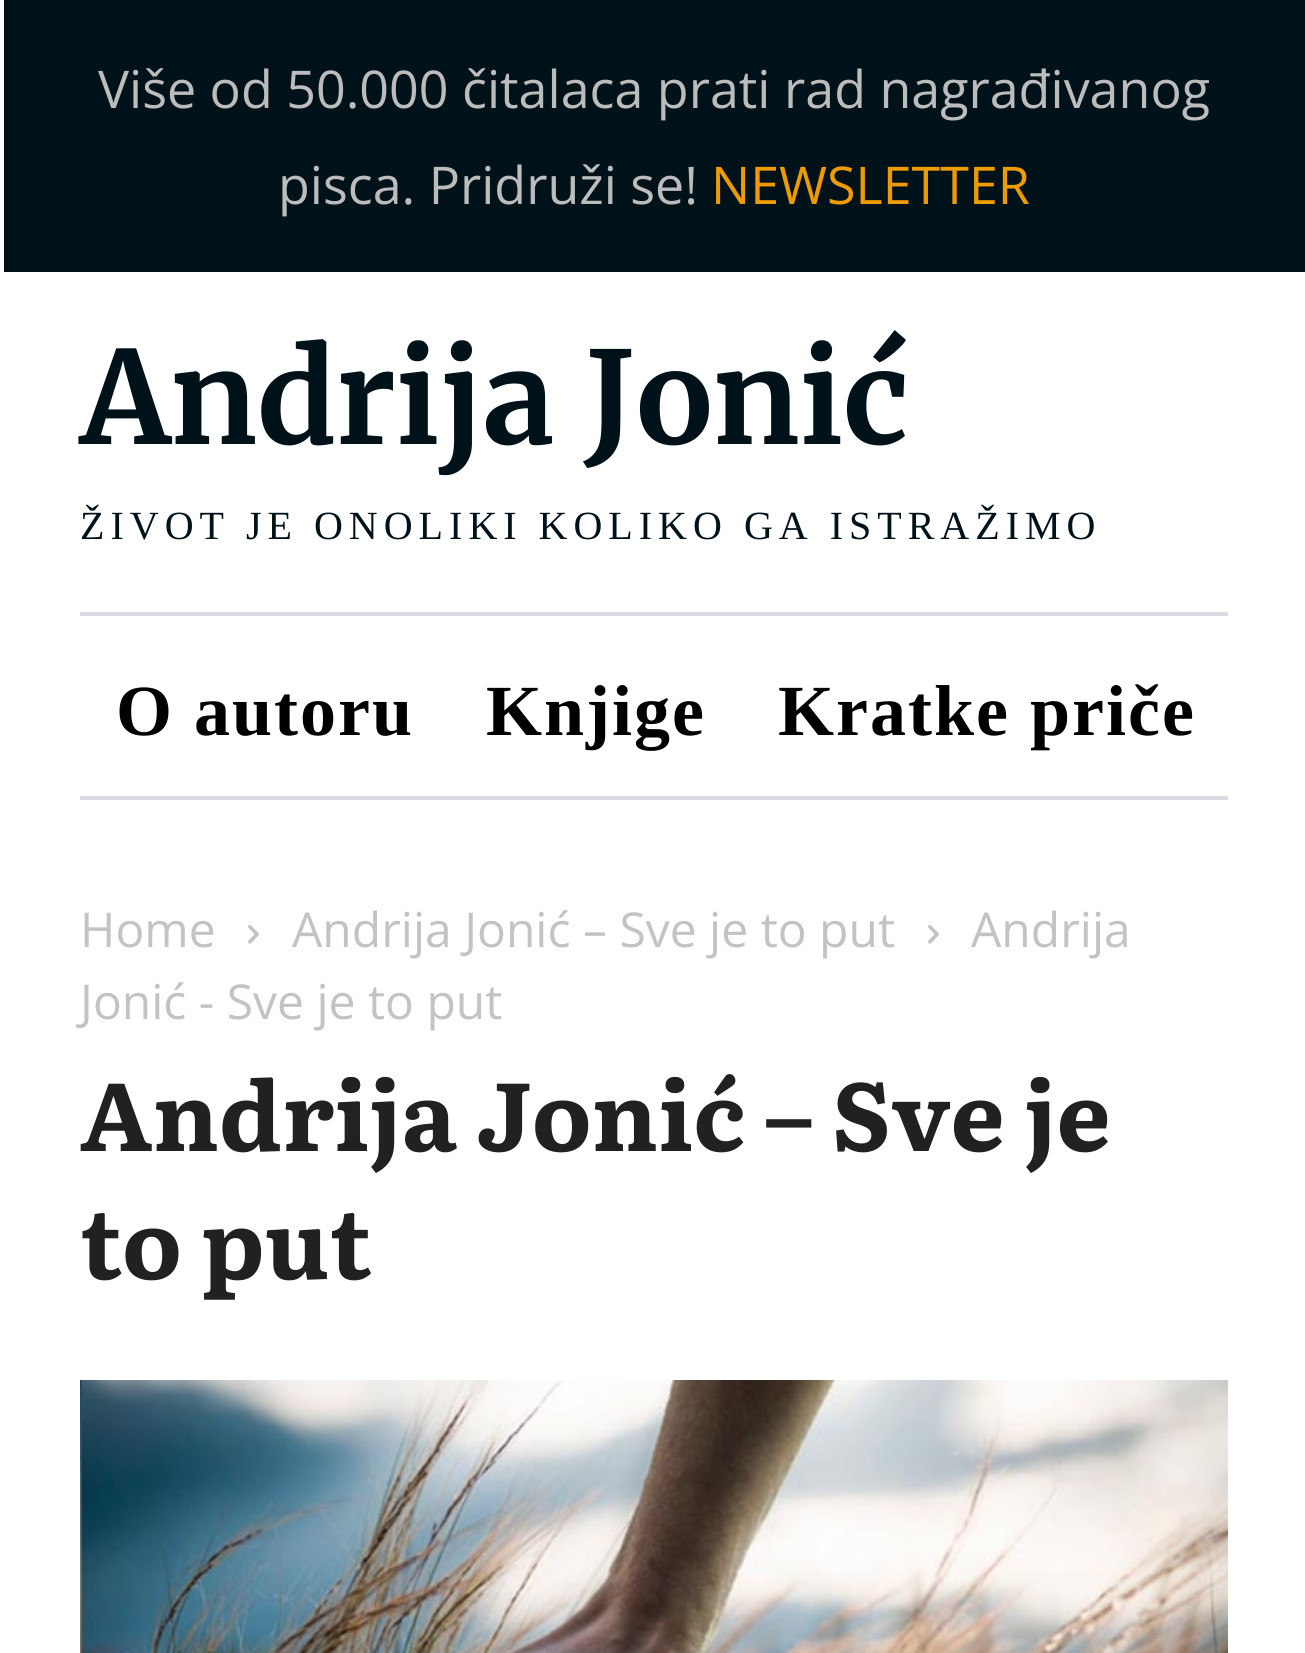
#include <cairo.h>
#include <math.h>
#include <stddef.h>

typedef struct { double x, y; const char *s; } line_t;

static void ink(cairo_t *ctx, unsigned color) {
    cairo_set_source_rgb(ctx, (color >> 16) / 255.0, (color >> 8 & 255) / 255.0, (color & 255) / 255.0);
}

static void write_spaced(cairo_t *ctx, double x, double y, const char *s, double letter, double word) {
    cairo_move_to(ctx, x, y);
    while (*s) {
        char ch[5] = {0};
        int n = 0;
        do ch[n++] = *s++; while ((*s & 0xC0) == 0x80);
        cairo_show_text(ctx, ch);
        cairo_rel_move_to(ctx, letter + word * (*ch == ' '), 0);
    }
}

static void paste(cairo_t *ctx, const char *path, double x, double y, double w, double h) {
    cairo_surface_t *image = cairo_image_surface_create_from_png(path);
    cairo_save(ctx);
    cairo_set_source_surface(ctx, image, x, y);
    cairo_rectangle(ctx, x, y, w, h);
    cairo_fill(ctx);
    cairo_restore(ctx);
    cairo_surface_destroy(image);
}

int main(void) {
    cairo_surface_t *surface = cairo_image_surface_create(CAIRO_FORMAT_RGB24, 1305, 1653);
    cairo_t *ctx = cairo_create(surface);
    cairo_font_options_t *options = cairo_font_options_create();
    cairo_font_options_set_hint_metrics(options, CAIRO_HINT_METRICS_OFF);
    cairo_font_options_set_hint_style(options, CAIRO_HINT_STYLE_NONE);
    cairo_set_font_options(ctx, options);
    cairo_set_miter_limit(ctx, 4);
    ink(ctx, 0xFFFFFF);
    cairo_paint(ctx);
    ink(ctx, 0x001219);
    cairo_rectangle(ctx, 4, 0, 1301, 272);
    cairo_fill(ctx);
    cairo_select_font_face(ctx, "Open Sans", CAIRO_FONT_SLANT_NORMAL, CAIRO_FONT_WEIGHT_NORMAL);
    cairo_set_font_size(ctx, 52);
    ink(ctx, 0xBCBCBC);
    cairo_move_to(ctx, 98, 108);
    cairo_show_text(ctx, "Više od 50.000 čitalaca prati rad nagrađivanog");
    cairo_move_to(ctx, 278, 204);
    cairo_show_text(ctx, "pisca. Pridruži se!");
    ink(ctx, 0xEE9B00);
    cairo_move_to(ctx, 711, 204);
    cairo_show_text(ctx, "NEWSLETTER");
    ink(ctx, 0xD9DDE2);
    cairo_rectangle(ctx, 80, 612, 1148, 4);
    cairo_fill(ctx);
    cairo_select_font_face(ctx, "Merriweather", CAIRO_FONT_SLANT_NORMAL, CAIRO_FONT_WEIGHT_BOLD);
    cairo_set_font_size(ctx, 128);
    ink(ctx, 0x001219);
    cairo_move_to(ctx, 80, 444);
    cairo_show_text(ctx, "Andrija Jonić");
    cairo_select_font_face(ctx, "Liberation Serif", CAIRO_FONT_SLANT_NORMAL, CAIRO_FONT_WEIGHT_NORMAL);
    cairo_set_font_size(ctx, 40);
    write_spaced(ctx, 80, 539, "ŽIVOT JE ONOLIKI KOLIKO GA ISTRAŽIMO", 6, 0);
    ink(ctx, 0xD9DDE2);
    cairo_rectangle(ctx, 80, 796, 1148, 4);
    cairo_fill(ctx);
    cairo_select_font_face(ctx, "Liberation Serif", CAIRO_FONT_SLANT_NORMAL, CAIRO_FONT_WEIGHT_BOLD);
    cairo_set_font_size(ctx, 72);
    ink(ctx, 0x000000);
    {
        static const line_t items[] = {
            {116, 735, "O autoru"},
            {486, 735, "Knjige"},
            {778, 735, "Kratke priče"},
        };
        for (size_t i = 0; i < sizeof items / sizeof *items; i++) {
            write_spaced(ctx, items[i].x, items[i].y, items[i].s, 2, 0);
        }
    }
    cairo_select_font_face(ctx, "Open Sans", CAIRO_FONT_SLANT_NORMAL, CAIRO_FONT_WEIGHT_NORMAL);
    cairo_set_font_size(ctx, 48);
    ink(ctx, 0xC3C3C3);
    cairo_move_to(ctx, 80, 947);
    cairo_show_text(ctx, "Home");
    paste(ctx, "media/1.png", 248, 925, 11, 19);
    cairo_move_to(ctx, 292, 947);
    cairo_show_text(ctx, "Andrija Jonić – Sve je to put");
    paste(ctx, "media/1.png", 928, 925, 11, 19);
    cairo_move_to(ctx, 971, 947);
    cairo_show_text(ctx, "Andrija");
    cairo_move_to(ctx, 80, 1019);
    cairo_show_text(ctx, "Jonić - Sve je to put");
    cairo_select_font_face(ctx, "Literata", CAIRO_FONT_SLANT_NORMAL, CAIRO_FONT_WEIGHT_BOLD);
    cairo_set_font_size(ctx, 96);
    ink(ctx, 0x212121);
    cairo_move_to(ctx, 80, 1151);
    cairo_show_text(ctx, "Andrija Jonić – Sve je");
    cairo_move_to(ctx, 80, 1279);
    cairo_show_text(ctx, "to put");
    paste(ctx, "media/2.png", 80, 1380, 1148, 273);
    cairo_surface_write_to_png(surface, "image.png");
    cairo_font_options_destroy(options);
    cairo_destroy(ctx);
    cairo_surface_destroy(surface);
    return 0;
}
